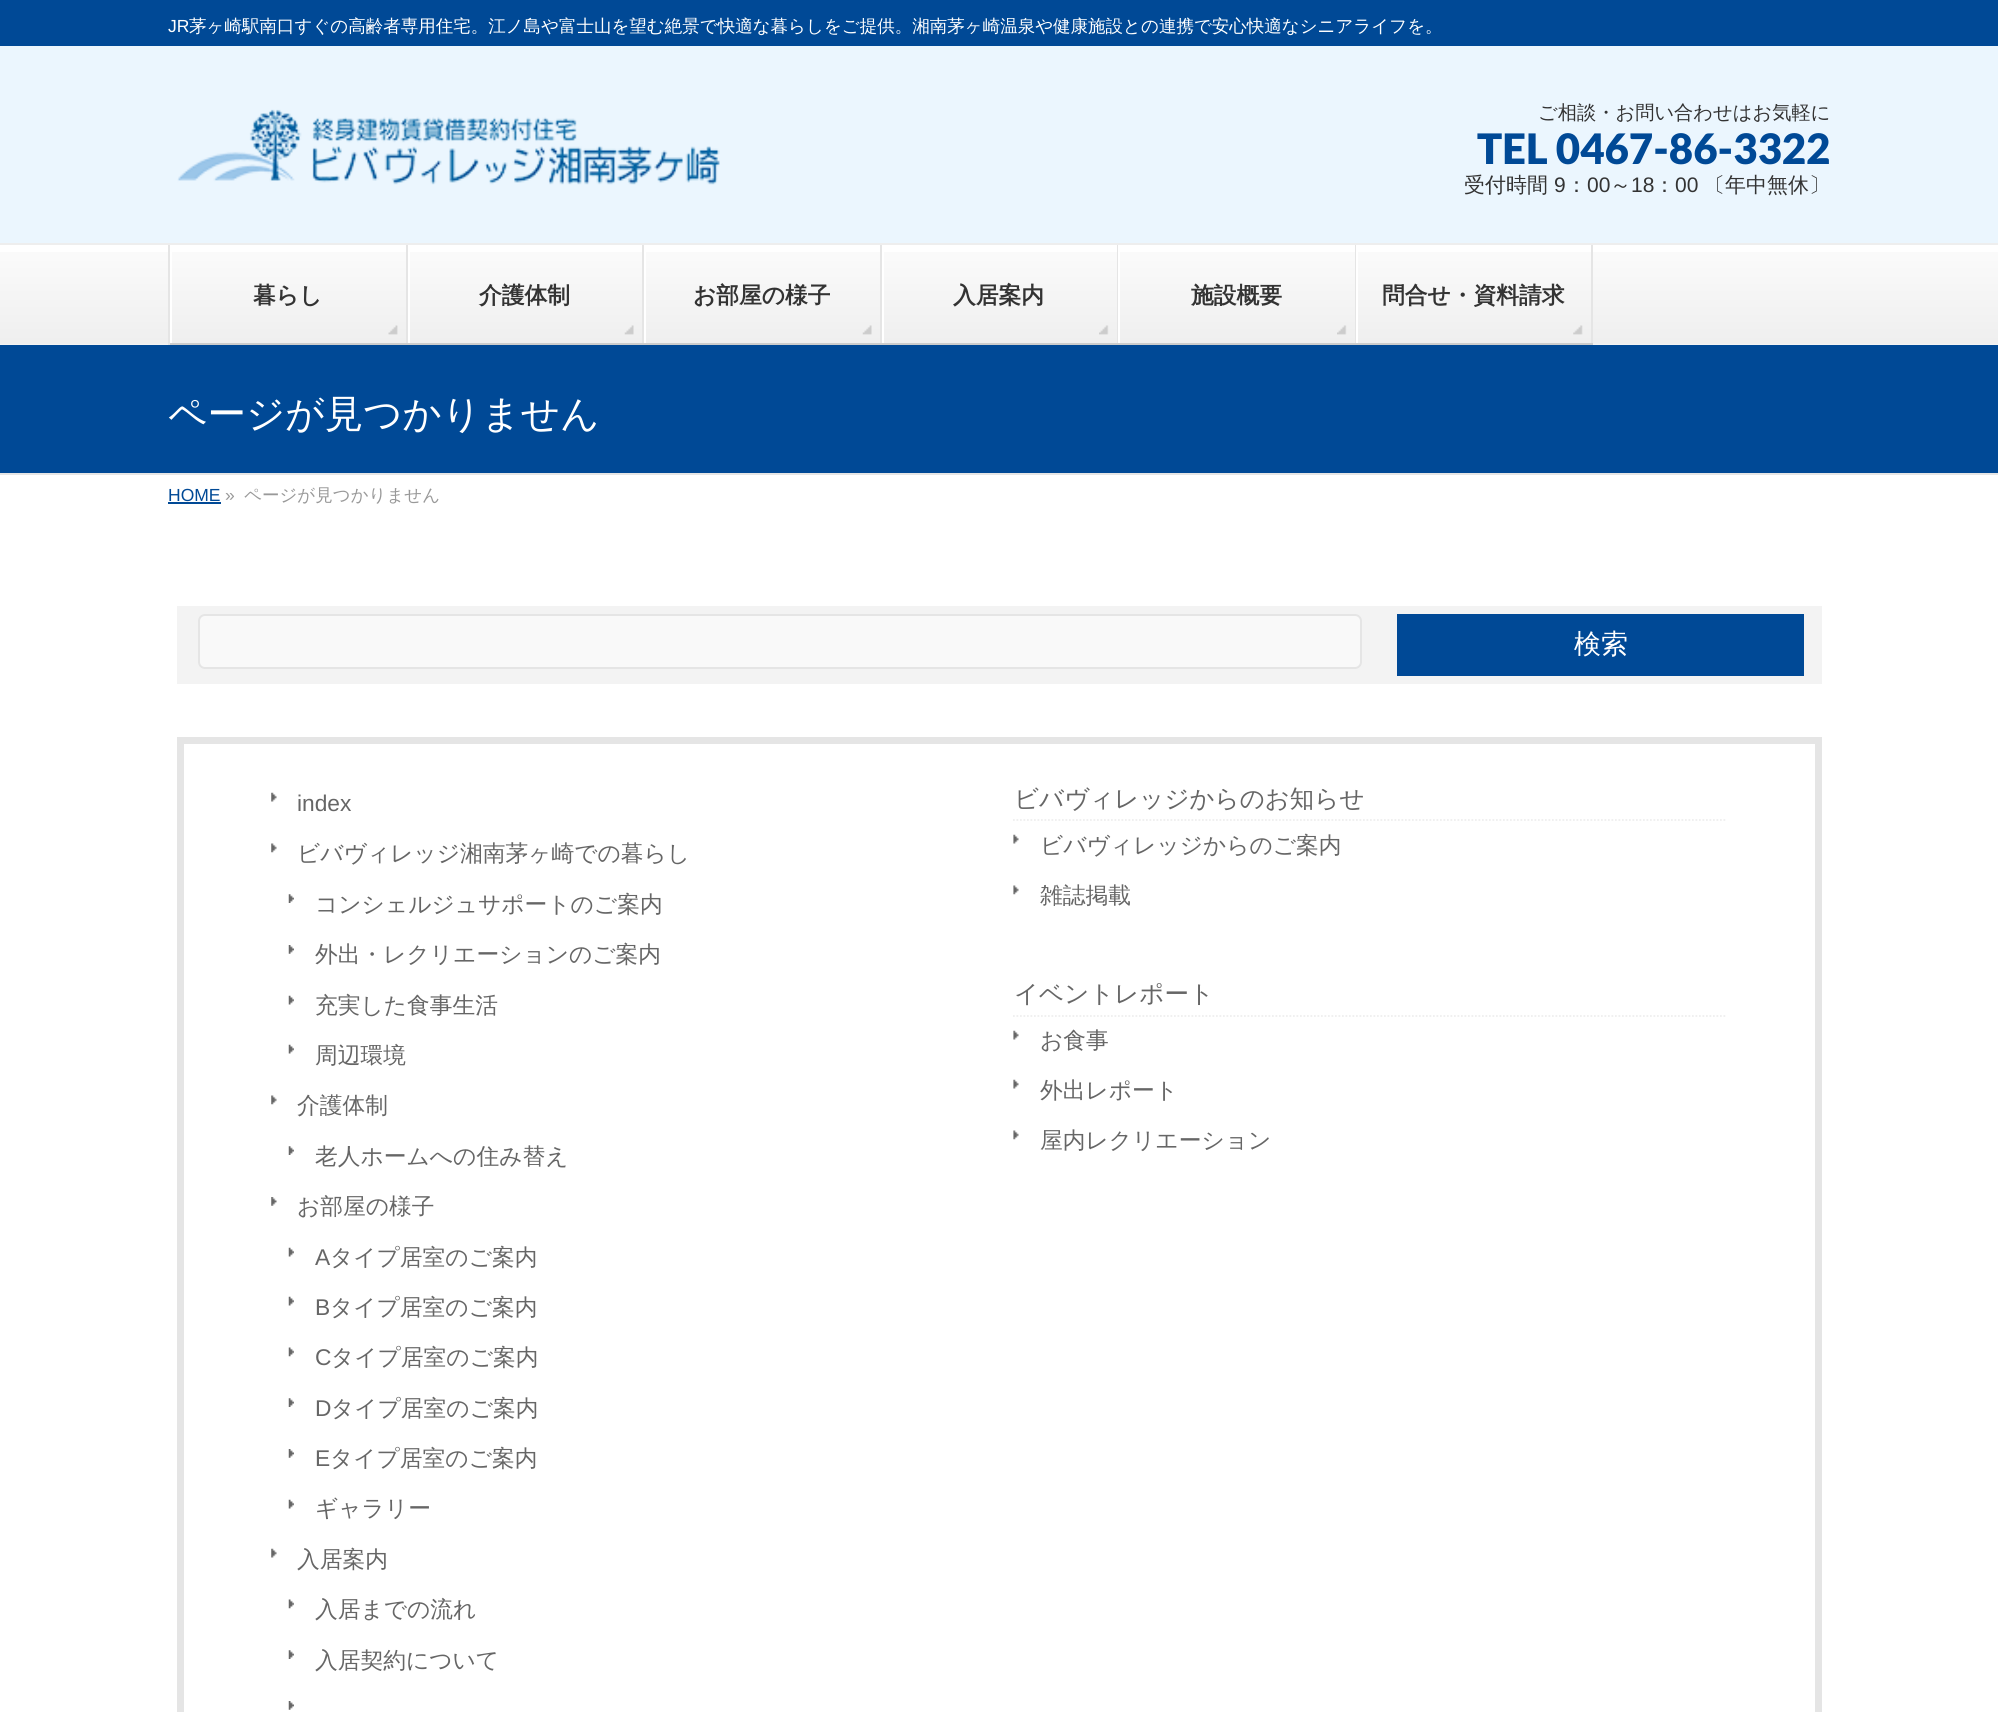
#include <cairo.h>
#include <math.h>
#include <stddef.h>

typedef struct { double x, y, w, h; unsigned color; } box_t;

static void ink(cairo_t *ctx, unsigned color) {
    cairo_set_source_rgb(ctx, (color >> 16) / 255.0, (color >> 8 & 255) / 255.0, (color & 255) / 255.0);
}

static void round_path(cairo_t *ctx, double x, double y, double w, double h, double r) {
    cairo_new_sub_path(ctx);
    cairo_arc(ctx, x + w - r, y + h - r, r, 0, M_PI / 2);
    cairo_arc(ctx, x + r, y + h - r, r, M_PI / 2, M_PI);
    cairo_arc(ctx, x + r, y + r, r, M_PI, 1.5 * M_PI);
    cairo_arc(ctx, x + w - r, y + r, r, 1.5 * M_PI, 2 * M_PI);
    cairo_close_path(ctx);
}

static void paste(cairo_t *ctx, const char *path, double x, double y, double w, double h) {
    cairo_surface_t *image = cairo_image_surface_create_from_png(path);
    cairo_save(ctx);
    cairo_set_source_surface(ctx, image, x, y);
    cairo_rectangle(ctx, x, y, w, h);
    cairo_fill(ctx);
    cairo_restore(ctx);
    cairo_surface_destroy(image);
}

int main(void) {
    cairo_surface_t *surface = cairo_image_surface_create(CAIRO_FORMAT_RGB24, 1998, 1712);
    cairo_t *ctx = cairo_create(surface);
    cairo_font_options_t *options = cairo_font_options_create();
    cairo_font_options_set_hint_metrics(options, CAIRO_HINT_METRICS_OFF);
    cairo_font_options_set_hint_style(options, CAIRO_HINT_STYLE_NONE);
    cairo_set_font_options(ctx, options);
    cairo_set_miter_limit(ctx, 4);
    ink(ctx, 0xFFFFFF);
    cairo_paint(ctx);
    ink(ctx, 0x004996);
    cairo_rectangle(ctx, 0, 0, 1998, 46);
    cairo_fill(ctx);
    cairo_select_font_face(ctx, "Liberation Sans", CAIRO_FONT_SLANT_NORMAL, CAIRO_FONT_WEIGHT_NORMAL);
    cairo_set_font_size(ctx, 17.5);
    ink(ctx, 0xFFFFFF);
    cairo_move_to(ctx, 168, 32);
    cairo_show_text(ctx, "JR");
    cairo_select_font_face(ctx, "WenQuanYi Zen Hei Medium", CAIRO_FONT_SLANT_NORMAL, CAIRO_FONT_WEIGHT_NORMAL);
    cairo_move_to(ctx, 189, 32);
    cairo_show_text(ctx, "茅ヶ崎駅南口すぐの高齢者専用住宅。江ノ島や富士山を望む絶景で快適な暮らしをご提供。湘南茅ヶ崎温泉や健康施設との連携で安心快適なシニアライフを。");
    ink(ctx, 0xEBF6FE);
    cairo_rectangle(ctx, 0, 46, 1998, 197);
    cairo_fill(ctx);
    paste(ctx, "media/1.png", 177, 109, 543, 76);
    cairo_set_font_size(ctx, 19.25);
    ink(ctx, 0x333333);
    cairo_move_to(ctx, 1538, 119);
    cairo_show_text(ctx, "ご相談・お問い合わせはお気軽に");
    cairo_select_font_face(ctx, "Lato Black", CAIRO_FONT_SLANT_NORMAL, CAIRO_FONT_WEIGHT_NORMAL);
    cairo_set_font_size(ctx, 42);
    ink(ctx, 0x004996);
    cairo_move_to(ctx, 1477, 164);
    cairo_show_text(ctx, "TEL 0467-86-3322");
    cairo_select_font_face(ctx, "WenQuanYi Zen Hei Medium", CAIRO_FONT_SLANT_NORMAL, CAIRO_FONT_WEIGHT_NORMAL);
    cairo_set_font_size(ctx, 21);
    ink(ctx, 0x333333);
    cairo_move_to(ctx, 1464, 192);
    cairo_show_text(ctx, "受付時間");
    cairo_select_font_face(ctx, "Liberation Sans", CAIRO_FONT_SLANT_NORMAL, CAIRO_FONT_WEIGHT_NORMAL);
    cairo_move_to(ctx, 1554, 192);
    cairo_show_text(ctx, "9");
    cairo_select_font_face(ctx, "WenQuanYi Zen Hei Medium", CAIRO_FONT_SLANT_NORMAL, CAIRO_FONT_WEIGHT_NORMAL);
    cairo_move_to(ctx, 1566, 192);
    cairo_show_text(ctx, "：");
    cairo_select_font_face(ctx, "Liberation Sans", CAIRO_FONT_SLANT_NORMAL, CAIRO_FONT_WEIGHT_NORMAL);
    cairo_move_to(ctx, 1587, 192);
    cairo_show_text(ctx, "00");
    cairo_select_font_face(ctx, "WenQuanYi Zen Hei Medium", CAIRO_FONT_SLANT_NORMAL, CAIRO_FONT_WEIGHT_NORMAL);
    cairo_move_to(ctx, 1610, 192);
    cairo_show_text(ctx, "～");
    cairo_select_font_face(ctx, "Liberation Sans", CAIRO_FONT_SLANT_NORMAL, CAIRO_FONT_WEIGHT_NORMAL);
    cairo_move_to(ctx, 1631, 192);
    cairo_show_text(ctx, "18");
    cairo_select_font_face(ctx, "WenQuanYi Zen Hei Medium", CAIRO_FONT_SLANT_NORMAL, CAIRO_FONT_WEIGHT_NORMAL);
    cairo_move_to(ctx, 1654, 192);
    cairo_show_text(ctx, "：");
    cairo_select_font_face(ctx, "Liberation Sans", CAIRO_FONT_SLANT_NORMAL, CAIRO_FONT_WEIGHT_NORMAL);
    cairo_move_to(ctx, 1675, 192);
    cairo_show_text(ctx, "00");
    cairo_select_font_face(ctx, "WenQuanYi Zen Hei Medium", CAIRO_FONT_SLANT_NORMAL, CAIRO_FONT_WEIGHT_NORMAL);
    cairo_move_to(ctx, 1704, 192);
    cairo_show_text(ctx, "〔年中無休〕");
    paste(ctx, "media/2.png", 0, 252, 1998, 93);
    {
        static const box_t items[] = {
            {0, 243, 1998, 2, 0xEEEEEE},
            {168, 245, 2, 100, 0xE5E5E5},
            {170, 245, 2, 100, 0xFFFFFF},
        };
        for (size_t i = 0; i < sizeof items / sizeof *items; i++) {
            ink(ctx, items[i].color);
            cairo_rectangle(ctx, items[i].x, items[i].y, items[i].w, items[i].h);
            cairo_fill(ctx);
        }
    }
    paste(ctx, "media/3.png", 388, 325, 10, 10);
    ink(ctx, 0xE5E5E5);
    cairo_rectangle(ctx, 406, 245, 2, 100);
    cairo_fill(ctx);
    ink(ctx, 0xCCCCCC);
    cairo_rectangle(ctx, 170, 343, 238, 2);
    cairo_fill(ctx);
    cairo_select_font_face(ctx, "WenQuanYi Zen Hei", CAIRO_FONT_SLANT_NORMAL, CAIRO_FONT_WEIGHT_BOLD);
    cairo_set_font_size(ctx, 22.75);
    ink(ctx, 0x333333);
    cairo_move_to(ctx, 253, 303);
    cairo_show_text(ctx, "暮らし");
    ink(ctx, 0xFFFFFF);
    cairo_rectangle(ctx, 408, 245, 2, 100);
    cairo_fill(ctx);
    paste(ctx, "media/4.png", 624, 325, 10, 10);
    ink(ctx, 0xE5E5E5);
    cairo_rectangle(ctx, 642, 245, 2, 100);
    cairo_fill(ctx);
    ink(ctx, 0xCCCCCC);
    cairo_rectangle(ctx, 408, 343, 236, 2);
    cairo_fill(ctx);
    ink(ctx, 0x333333);
    cairo_move_to(ctx, 479, 303);
    cairo_show_text(ctx, "介護体制");
    ink(ctx, 0xFFFFFF);
    cairo_rectangle(ctx, 644, 245, 2, 100);
    cairo_fill(ctx);
    paste(ctx, "media/4.png", 862, 325, 10, 10);
    ink(ctx, 0xE5E5E5);
    cairo_rectangle(ctx, 880, 245, 2, 100);
    cairo_fill(ctx);
    ink(ctx, 0xCCCCCC);
    cairo_rectangle(ctx, 644, 343, 238, 2);
    cairo_fill(ctx);
    ink(ctx, 0x333333);
    cairo_move_to(ctx, 693, 303);
    cairo_show_text(ctx, "お部屋の様子");
    ink(ctx, 0xFFFFFF);
    cairo_rectangle(ctx, 882, 245, 2, 100);
    cairo_fill(ctx);
    paste(ctx, "media/5.png", 1099, 325, 10, 10);
    ink(ctx, 0xE5E5E5);
    cairo_rectangle(ctx, 1117, 245, 1, 100);
    cairo_fill(ctx);
    ink(ctx, 0xCCCCCC);
    cairo_rectangle(ctx, 882, 343, 236, 2);
    cairo_fill(ctx);
    ink(ctx, 0x333333);
    cairo_move_to(ctx, 953, 303);
    cairo_show_text(ctx, "入居案内");
    ink(ctx, 0xFFFFFF);
    cairo_rectangle(ctx, 1118, 245, 2, 100);
    cairo_fill(ctx);
    paste(ctx, "media/5.png", 1337, 325, 10, 10);
    ink(ctx, 0xE5E5E5);
    cairo_rectangle(ctx, 1355, 245, 1, 100);
    cairo_fill(ctx);
    ink(ctx, 0xCCCCCC);
    cairo_rectangle(ctx, 1118, 343, 238, 2);
    cairo_fill(ctx);
    ink(ctx, 0x333333);
    cairo_move_to(ctx, 1191, 303);
    cairo_show_text(ctx, "施設概要");
    ink(ctx, 0xFFFFFF);
    cairo_rectangle(ctx, 1356, 245, 2, 100);
    cairo_fill(ctx);
    paste(ctx, "media/6.png", 1573, 325, 10, 10);
    ink(ctx, 0xE5E5E5);
    cairo_rectangle(ctx, 1591, 245, 2, 100);
    cairo_fill(ctx);
    ink(ctx, 0xCCCCCC);
    cairo_rectangle(ctx, 1356, 343, 237, 2);
    cairo_fill(ctx);
    ink(ctx, 0x333333);
    cairo_move_to(ctx, 1382, 303);
    cairo_show_text(ctx, "問合せ・資料請求");
    ink(ctx, 0x004996);
    cairo_rectangle(ctx, 0, 345, 1998, 128);
    cairo_fill(ctx);
    ink(ctx, 0xE5E5E5);
    cairo_rectangle(ctx, 0, 473, 1998, 2);
    cairo_fill(ctx);
    cairo_select_font_face(ctx, "WenQuanYi Zen Hei Medium", CAIRO_FONT_SLANT_NORMAL, CAIRO_FONT_WEIGHT_NORMAL);
    cairo_set_font_size(ctx, 38.5);
    ink(ctx, 0xFFFFFF);
    cairo_move_to(ctx, 168, 427);
    cairo_show_text(ctx, "ページが見つかりません");
    cairo_select_font_face(ctx, "Liberation Sans", CAIRO_FONT_SLANT_NORMAL, CAIRO_FONT_WEIGHT_NORMAL);
    cairo_set_font_size(ctx, 17.5);
    ink(ctx, 0x004996);
    cairo_move_to(ctx, 168, 501);
    cairo_show_text(ctx, "HOME");
    cairo_rectangle(ctx, 168, 502, 53, 2);
    cairo_fill(ctx);
    ink(ctx, 0x999999);
    cairo_move_to(ctx, 225, 501);
    cairo_show_text(ctx, "»");
    cairo_select_font_face(ctx, "WenQuanYi Zen Hei Medium", CAIRO_FONT_SLANT_NORMAL, CAIRO_FONT_WEIGHT_NORMAL);
    cairo_move_to(ctx, 244, 501);
    cairo_show_text(ctx, "ページが見つかりません");
    ink(ctx, 0xF3F3F3);
    cairo_rectangle(ctx, 177, 606, 1645, 78);
    cairo_fill(ctx);
    ink(ctx, 0xF9F9F9);
    round_path(ctx, 199, 615, 1162, 53, 6);
    cairo_fill_preserve(ctx);
    ink(ctx, 0xE5E5E5);
    cairo_stroke(ctx);
    ink(ctx, 0x004996);
    cairo_rectangle(ctx, 1397, 614, 407, 62);
    cairo_fill(ctx);
    cairo_set_font_size(ctx, 27);
    ink(ctx, 0xFFFFFF);
    cairo_move_to(ctx, 1574, 653);
    cairo_show_text(ctx, "検索");
    cairo_rectangle(ctx, 180.5, 740.5, 1638, 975);
    ink(ctx, 0xE5E5E5);
    cairo_set_line_width(ctx, 7);
    cairo_stroke(ctx);
    paste(ctx, "media/7.png", 271, 792, 6, 10);
    cairo_select_font_face(ctx, "Liberation Sans", CAIRO_FONT_SLANT_NORMAL, CAIRO_FONT_WEIGHT_NORMAL);
    cairo_set_font_size(ctx, 22.75);
    ink(ctx, 0x666666);
    cairo_move_to(ctx, 297, 811);
    cairo_show_text(ctx, "index");
    paste(ctx, "media/8.png", 271, 843, 6, 10);
    cairo_select_font_face(ctx, "WenQuanYi Zen Hei Medium", CAIRO_FONT_SLANT_NORMAL, CAIRO_FONT_WEIGHT_NORMAL);
    cairo_move_to(ctx, 297, 861);
    cairo_show_text(ctx, "ビバヴィレッジ湘南茅ヶ崎での暮らし");
    paste(ctx, "media/9.png", 288, 894, 6, 9);
    cairo_move_to(ctx, 315, 912);
    cairo_show_text(ctx, "コンシェルジュサポートのご案内");
    paste(ctx, "media/10.png", 288, 945, 6, 9);
    cairo_move_to(ctx, 315, 962);
    cairo_show_text(ctx, "外出・レクリエーションのご案内");
    paste(ctx, "media/11.png", 288, 995, 6, 10);
    cairo_move_to(ctx, 315, 1013);
    cairo_show_text(ctx, "充実した食事生活");
    paste(ctx, "media/11.png", 288, 1044, 6, 10);
    cairo_move_to(ctx, 315, 1063);
    cairo_show_text(ctx, "周辺環境");
    paste(ctx, "media/8.png", 271, 1095, 6, 10);
    cairo_move_to(ctx, 297, 1113);
    cairo_show_text(ctx, "介護体制");
    paste(ctx, "media/9.png", 288, 1146, 6, 9);
    cairo_move_to(ctx, 315, 1164);
    cairo_show_text(ctx, "老人ホームへの住み替え");
    paste(ctx, "media/12.png", 271, 1197, 6, 9);
    cairo_move_to(ctx, 297, 1214);
    cairo_show_text(ctx, "お部屋の様子");
    paste(ctx, "media/11.png", 288, 1247, 6, 10);
    cairo_select_font_face(ctx, "Liberation Sans", CAIRO_FONT_SLANT_NORMAL, CAIRO_FONT_WEIGHT_NORMAL);
    cairo_move_to(ctx, 315, 1265);
    cairo_show_text(ctx, "A");
    cairo_select_font_face(ctx, "WenQuanYi Zen Hei Medium", CAIRO_FONT_SLANT_NORMAL, CAIRO_FONT_WEIGHT_NORMAL);
    cairo_move_to(ctx, 330, 1265);
    cairo_show_text(ctx, "タイプ居室のご案内");
    paste(ctx, "media/11.png", 288, 1296, 6, 10);
    cairo_select_font_face(ctx, "Liberation Sans", CAIRO_FONT_SLANT_NORMAL, CAIRO_FONT_WEIGHT_NORMAL);
    cairo_move_to(ctx, 315, 1315);
    cairo_show_text(ctx, "B");
    cairo_select_font_face(ctx, "WenQuanYi Zen Hei Medium", CAIRO_FONT_SLANT_NORMAL, CAIRO_FONT_WEIGHT_NORMAL);
    cairo_move_to(ctx, 330, 1315);
    cairo_show_text(ctx, "タイプ居室のご案内");
    paste(ctx, "media/13.png", 288, 1347, 6, 10);
    cairo_select_font_face(ctx, "Liberation Sans", CAIRO_FONT_SLANT_NORMAL, CAIRO_FONT_WEIGHT_NORMAL);
    cairo_move_to(ctx, 315, 1365);
    cairo_show_text(ctx, "C");
    cairo_select_font_face(ctx, "WenQuanYi Zen Hei Medium", CAIRO_FONT_SLANT_NORMAL, CAIRO_FONT_WEIGHT_NORMAL);
    cairo_move_to(ctx, 331, 1365);
    cairo_show_text(ctx, "タイプ居室のご案内");
    paste(ctx, "media/9.png", 288, 1398, 6, 9);
    cairo_select_font_face(ctx, "Liberation Sans", CAIRO_FONT_SLANT_NORMAL, CAIRO_FONT_WEIGHT_NORMAL);
    cairo_move_to(ctx, 315, 1416);
    cairo_show_text(ctx, "D");
    cairo_select_font_face(ctx, "WenQuanYi Zen Hei Medium", CAIRO_FONT_SLANT_NORMAL, CAIRO_FONT_WEIGHT_NORMAL);
    cairo_move_to(ctx, 331, 1416);
    cairo_show_text(ctx, "タイプ居室のご案内");
    paste(ctx, "media/10.png", 288, 1449, 6, 9);
    cairo_select_font_face(ctx, "Liberation Sans", CAIRO_FONT_SLANT_NORMAL, CAIRO_FONT_WEIGHT_NORMAL);
    cairo_move_to(ctx, 315, 1466);
    cairo_show_text(ctx, "E");
    cairo_select_font_face(ctx, "WenQuanYi Zen Hei Medium", CAIRO_FONT_SLANT_NORMAL, CAIRO_FONT_WEIGHT_NORMAL);
    cairo_move_to(ctx, 330, 1466);
    cairo_show_text(ctx, "タイプ居室のご案内");
    paste(ctx, "media/11.png", 288, 1499, 6, 10);
    cairo_move_to(ctx, 315, 1516);
    cairo_show_text(ctx, "ギャラリー");
    paste(ctx, "media/7.png", 271, 1548, 6, 10);
    cairo_move_to(ctx, 297, 1567);
    cairo_show_text(ctx, "入居案内");
    paste(ctx, "media/13.png", 288, 1599, 6, 10);
    cairo_move_to(ctx, 315, 1617);
    cairo_show_text(ctx, "入居までの流れ");
    paste(ctx, "media/9.png", 288, 1650, 6, 9);
    cairo_move_to(ctx, 315, 1668);
    cairo_show_text(ctx, "入居契約について");
    paste(ctx, "media/10.png", 288, 1701, 6, 9);
    cairo_new_path(ctx);
    cairo_move_to(ctx, 1013, 820);
    cairo_line_to(ctx, 1727, 820);
    ink(ctx, 0xEEEEEE);
    cairo_set_line_width(ctx, 1.8);
    cairo_set_dash(ctx, (double[]){1.75, 1.75}, 2, 0);
    cairo_stroke(ctx);
    cairo_set_font_size(ctx, 24.5);
    ink(ctx, 0x666666);
    cairo_move_to(ctx, 1014, 807);
    cairo_show_text(ctx, "ビバヴィレッジからのお知らせ");
    paste(ctx, "media/14.png", 1013, 834, 6, 10);
    cairo_set_font_size(ctx, 22.75);
    cairo_move_to(ctx, 1040, 853);
    cairo_show_text(ctx, "ビバヴィレッジからのご案内");
    paste(ctx, "media/15.png", 1013, 885, 6, 10);
    cairo_move_to(ctx, 1040, 903);
    cairo_show_text(ctx, "雑誌掲載");
    cairo_new_path(ctx);
    cairo_move_to(ctx, 1013, 1016);
    cairo_line_to(ctx, 1727, 1016);
    ink(ctx, 0xEEEEEE);
    cairo_stroke(ctx);
    cairo_set_font_size(ctx, 24.5);
    ink(ctx, 0x666666);
    cairo_move_to(ctx, 1014, 1002);
    cairo_show_text(ctx, "イベントレポート");
    paste(ctx, "media/14.png", 1013, 1030, 6, 10);
    cairo_set_font_size(ctx, 22.75);
    cairo_move_to(ctx, 1040, 1048);
    cairo_show_text(ctx, "お食事");
    paste(ctx, "media/14.png", 1013, 1079, 6, 10);
    cairo_move_to(ctx, 1040, 1098);
    cairo_show_text(ctx, "外出レポート");
    paste(ctx, "media/15.png", 1013, 1130, 6, 10);
    cairo_move_to(ctx, 1040, 1148);
    cairo_show_text(ctx, "屋内レクリエーション");
    cairo_surface_write_to_png(surface, "image.png");
    cairo_font_options_destroy(options);
    cairo_destroy(ctx);
    cairo_surface_destroy(surface);
    return 0;
}
